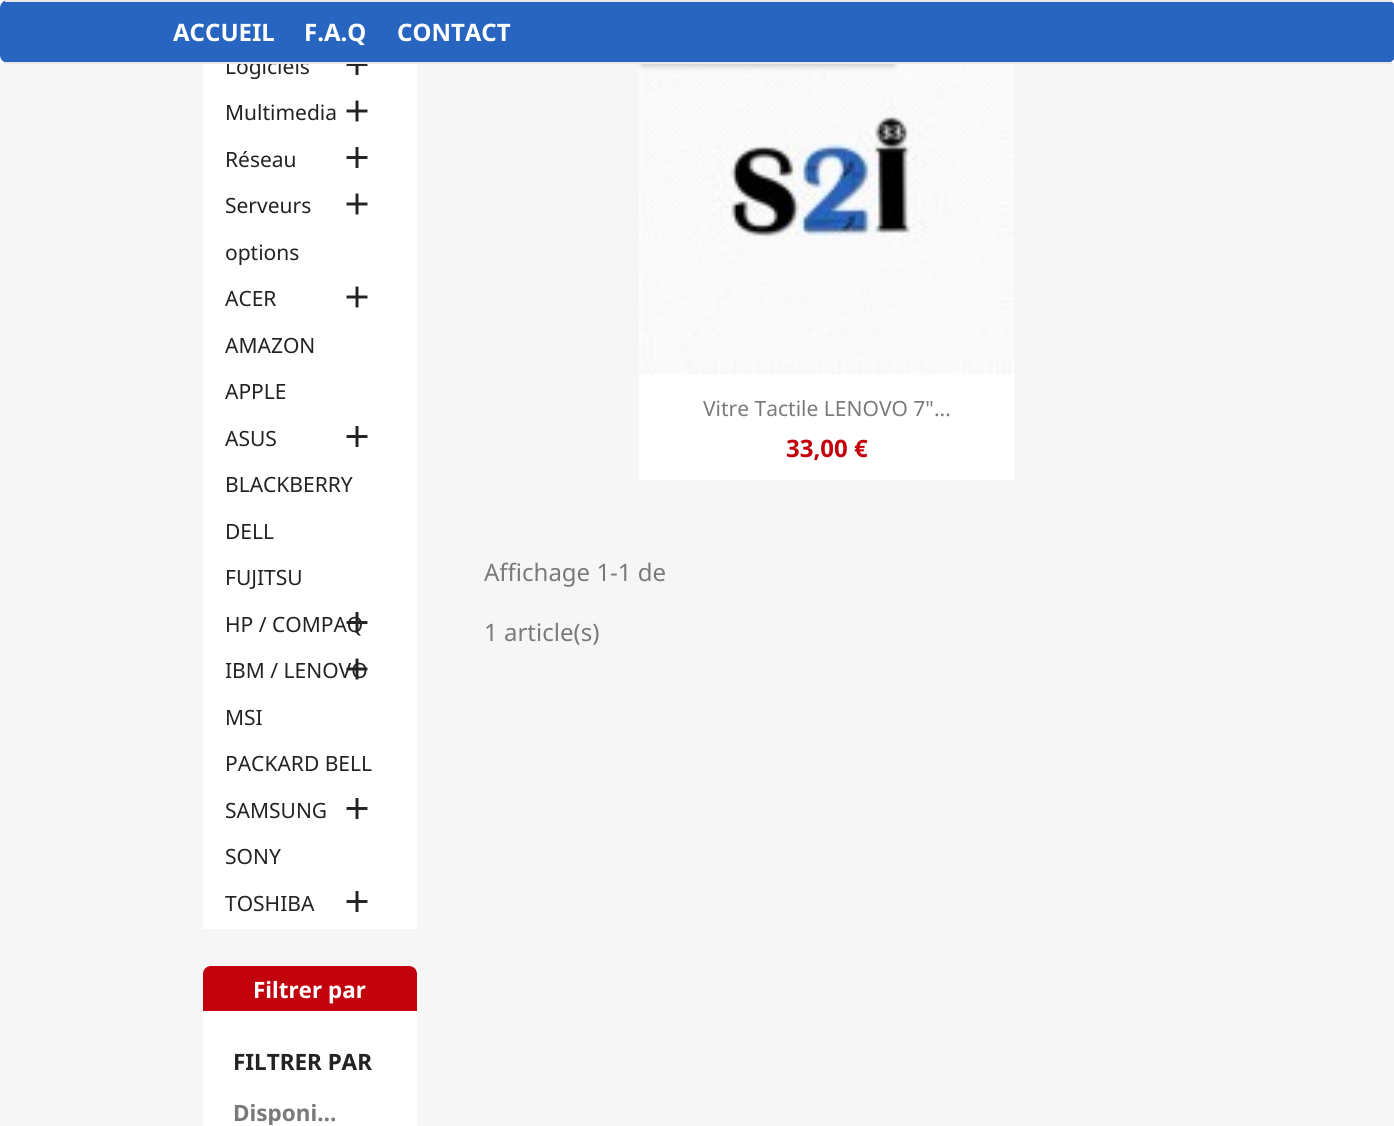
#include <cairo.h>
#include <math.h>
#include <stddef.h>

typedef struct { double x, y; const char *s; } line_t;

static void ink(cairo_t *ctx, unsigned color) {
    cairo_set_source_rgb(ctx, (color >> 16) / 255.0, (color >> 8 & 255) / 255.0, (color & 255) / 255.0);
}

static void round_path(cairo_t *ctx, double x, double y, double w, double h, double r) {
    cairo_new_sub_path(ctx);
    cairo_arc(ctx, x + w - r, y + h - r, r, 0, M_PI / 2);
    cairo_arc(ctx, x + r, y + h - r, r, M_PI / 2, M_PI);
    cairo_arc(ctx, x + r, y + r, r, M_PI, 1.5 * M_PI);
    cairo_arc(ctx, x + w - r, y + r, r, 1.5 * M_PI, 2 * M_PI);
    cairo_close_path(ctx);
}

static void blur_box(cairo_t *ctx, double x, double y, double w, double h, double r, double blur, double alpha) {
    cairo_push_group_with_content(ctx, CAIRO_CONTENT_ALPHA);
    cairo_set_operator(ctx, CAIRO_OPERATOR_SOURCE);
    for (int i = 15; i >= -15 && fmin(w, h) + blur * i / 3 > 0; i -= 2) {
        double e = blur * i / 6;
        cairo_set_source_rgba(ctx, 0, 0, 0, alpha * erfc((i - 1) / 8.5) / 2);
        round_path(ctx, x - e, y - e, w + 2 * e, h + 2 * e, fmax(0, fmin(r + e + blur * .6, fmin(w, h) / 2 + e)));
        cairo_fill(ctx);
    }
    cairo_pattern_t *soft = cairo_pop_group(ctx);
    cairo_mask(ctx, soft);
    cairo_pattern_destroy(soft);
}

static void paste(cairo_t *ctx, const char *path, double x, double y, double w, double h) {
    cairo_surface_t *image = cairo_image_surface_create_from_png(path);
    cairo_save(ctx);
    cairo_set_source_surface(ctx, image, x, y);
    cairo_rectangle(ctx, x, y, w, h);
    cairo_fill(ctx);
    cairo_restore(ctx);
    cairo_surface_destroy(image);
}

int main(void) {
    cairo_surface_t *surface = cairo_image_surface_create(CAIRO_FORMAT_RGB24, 1394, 1126);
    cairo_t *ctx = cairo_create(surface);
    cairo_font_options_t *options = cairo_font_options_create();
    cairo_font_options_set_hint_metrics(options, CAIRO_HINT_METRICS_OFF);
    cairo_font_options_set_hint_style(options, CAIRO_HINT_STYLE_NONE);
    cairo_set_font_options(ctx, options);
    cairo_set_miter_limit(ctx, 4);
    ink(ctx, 0xF6F6F6);
    cairo_paint(ctx);
    ink(ctx, 0xFFFFFF);
    cairo_rectangle(ctx, 203, 64, 214, 865);
    cairo_fill(ctx);
    cairo_select_font_face(ctx, "Noto Sans", CAIRO_FONT_SLANT_NORMAL, CAIRO_FONT_WEIGHT_NORMAL);
    cairo_set_font_size(ctx, 21);
    ink(ctx, 0x232323);
    cairo_move_to(ctx, 225, 74);
    cairo_show_text(ctx, "Logiciels");
    ink(ctx, 0xFFFFFF);
    cairo_rectangle(ctx, 639, 374, 375, 106);
    cairo_fill(ctx);
    paste(ctx, "media/6.png", 639, 64, 375, 311);
    ink(ctx, 0x000000);
    blur_box(ctx, 642, 21, 252, 45, 0, 3, 0.2);
    ink(ctx, 0xFFFFFF);
    cairo_rectangle(ctx, 0, 0, 1394, 63);
    cairo_fill(ctx);
    ink(ctx, 0x2765C1);
    round_path(ctx, 0, 0, 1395, 63, 8);
    cairo_fill(ctx);
    ink(ctx, 0xE7E7E7);
    cairo_rectangle(ctx, 5, 0, 1387, 2);
    cairo_fill(ctx);
    cairo_rectangle(ctx, 5, 62, 1387, 2);
    cairo_fill(ctx);
    cairo_select_font_face(ctx, "Noto Sans", CAIRO_FONT_SLANT_NORMAL, CAIRO_FONT_WEIGHT_BOLD);
    cairo_set_font_size(ctx, 24);
    ink(ctx, 0xFFFFFF);
    {
        static const line_t items[] = {
            {173, 41, "ACCUEIL"},
            {304, 41, "F.A.Q"},
            {397, 41, "CONTACT"},
        };
        for (size_t i = 0; i < sizeof items / sizeof *items; i++) {
            cairo_move_to(ctx, items[i].x, items[i].y);
            cairo_show_text(ctx, items[i].s);
        }
    }
    paste(ctx, "media/1.png", 346, 64, 22, 11);
    cairo_select_font_face(ctx, "Noto Sans", CAIRO_FONT_SLANT_NORMAL, CAIRO_FONT_WEIGHT_NORMAL);
    cairo_set_font_size(ctx, 21);
    ink(ctx, 0x232323);
    cairo_move_to(ctx, 225, 120);
    cairo_show_text(ctx, "Multimedia");
    paste(ctx, "media/2.png", 346, 100, 22, 22);
    cairo_move_to(ctx, 225, 167);
    cairo_show_text(ctx, "Réseau");
    paste(ctx, "media/3.png", 346, 147, 22, 21);
    cairo_move_to(ctx, 225, 213);
    cairo_show_text(ctx, "Serveurs");
    paste(ctx, "media/2.png", 346, 193, 22, 22);
    cairo_move_to(ctx, 225, 260);
    cairo_show_text(ctx, "options");
    cairo_move_to(ctx, 225, 306);
    cairo_show_text(ctx, "ACER");
    paste(ctx, "media/2.png", 346, 286, 22, 22);
    {
        static const line_t items[] = {
            {225, 353, "AMAZON"},
            {225, 399, "APPLE"},
            {225, 446, "ASUS"},
        };
        for (size_t i = 0; i < sizeof items / sizeof *items; i++) {
            cairo_move_to(ctx, items[i].x, items[i].y);
            cairo_show_text(ctx, items[i].s);
        }
    }
    paste(ctx, "media/3.png", 346, 426, 22, 21);
    {
        static const line_t items[] = {
            {225, 492, "BLACKBERRY"},
            {225, 539, "DELL"},
            {225, 585, "FUJITSU"},
            {225, 632, "HP / COMPAQ"},
        };
        for (size_t i = 0; i < sizeof items / sizeof *items; i++) {
            cairo_move_to(ctx, items[i].x, items[i].y);
            cairo_show_text(ctx, items[i].s);
        }
    }
    paste(ctx, "media/4.png", 346, 612, 22, 21);
    cairo_move_to(ctx, 225, 678);
    cairo_show_text(ctx, "IBM / LENOVO");
    paste(ctx, "media/5.png", 346, 658, 22, 22);
    {
        static const line_t items[] = {
            {225, 725, "MSI"},
            {225, 771, "PACKARD BELL"},
            {225, 818, "SAMSUNG"},
        };
        for (size_t i = 0; i < sizeof items / sizeof *items; i++) {
            cairo_move_to(ctx, items[i].x, items[i].y);
            cairo_show_text(ctx, items[i].s);
        }
    }
    paste(ctx, "media/3.png", 346, 798, 22, 21);
    cairo_move_to(ctx, 225, 864);
    cairo_show_text(ctx, "SONY");
    cairo_move_to(ctx, 225, 911);
    cairo_show_text(ctx, "TOSHIBA");
    paste(ctx, "media/3.png", 346, 891, 22, 21);
    ink(ctx, 0xC3010C);
    cairo_new_path(ctx);
    cairo_move_to(ctx, 211, 966);
    cairo_line_to(ctx, 409, 966);
    cairo_curve_to(ctx, 413.5, 966, 417, 969.5, 417, 974);
    cairo_line_to(ctx, 417, 1011);
    cairo_line_to(ctx, 203, 1011);
    cairo_line_to(ctx, 203, 974);
    cairo_curve_to(ctx, 203, 969.5, 206.5, 966, 211, 966);
    cairo_close_path(ctx);
    cairo_fill(ctx);
    cairo_select_font_face(ctx, "Noto Sans", CAIRO_FONT_SLANT_NORMAL, CAIRO_FONT_WEIGHT_BOLD);
    cairo_set_font_size(ctx, 22.5);
    ink(ctx, 0xFFFFFF);
    cairo_move_to(ctx, 253, 998);
    cairo_show_text(ctx, "Filtrer par");
    cairo_rectangle(ctx, 203, 1011, 214, 115);
    cairo_fill(ctx);
    ink(ctx, 0x232323);
    cairo_move_to(ctx, 233, 1070);
    cairo_show_text(ctx, "FILTRER PAR");
    cairo_save(ctx);
    cairo_rectangle(ctx, 233, 1101, 109, 24);
    cairo_clip(ctx);
    ink(ctx, 0x7A7A7A);
    cairo_move_to(ctx, 233, 1121);
    cairo_show_text(ctx, "Disponi…");
    cairo_restore(ctx);
    cairo_select_font_face(ctx, "Noto Sans", CAIRO_FONT_SLANT_NORMAL, CAIRO_FONT_WEIGHT_NORMAL);
    cairo_set_font_size(ctx, 21);
    ink(ctx, 0x7A7A7A);
    cairo_move_to(ctx, 703, 416);
    cairo_show_text(ctx, "Vitre Tactile LENOVO 7\"...");
    cairo_select_font_face(ctx, "Noto Sans", CAIRO_FONT_SLANT_NORMAL, CAIRO_FONT_WEIGHT_BOLD);
    cairo_set_font_size(ctx, 24);
    ink(ctx, 0xC3010C);
    cairo_move_to(ctx, 786, 457);
    cairo_show_text(ctx, "33,00 €");
    cairo_select_font_face(ctx, "Noto Sans", CAIRO_FONT_SLANT_NORMAL, CAIRO_FONT_WEIGHT_NORMAL);
    ink(ctx, 0x7A7A7A);
    cairo_move_to(ctx, 484, 581);
    cairo_show_text(ctx, "Affichage 1-1 de");
    cairo_move_to(ctx, 484, 641);
    cairo_show_text(ctx, "1 article(s)");
    cairo_surface_write_to_png(surface, "image.png");
    cairo_font_options_destroy(options);
    cairo_destroy(ctx);
    cairo_surface_destroy(surface);
    return 0;
}
